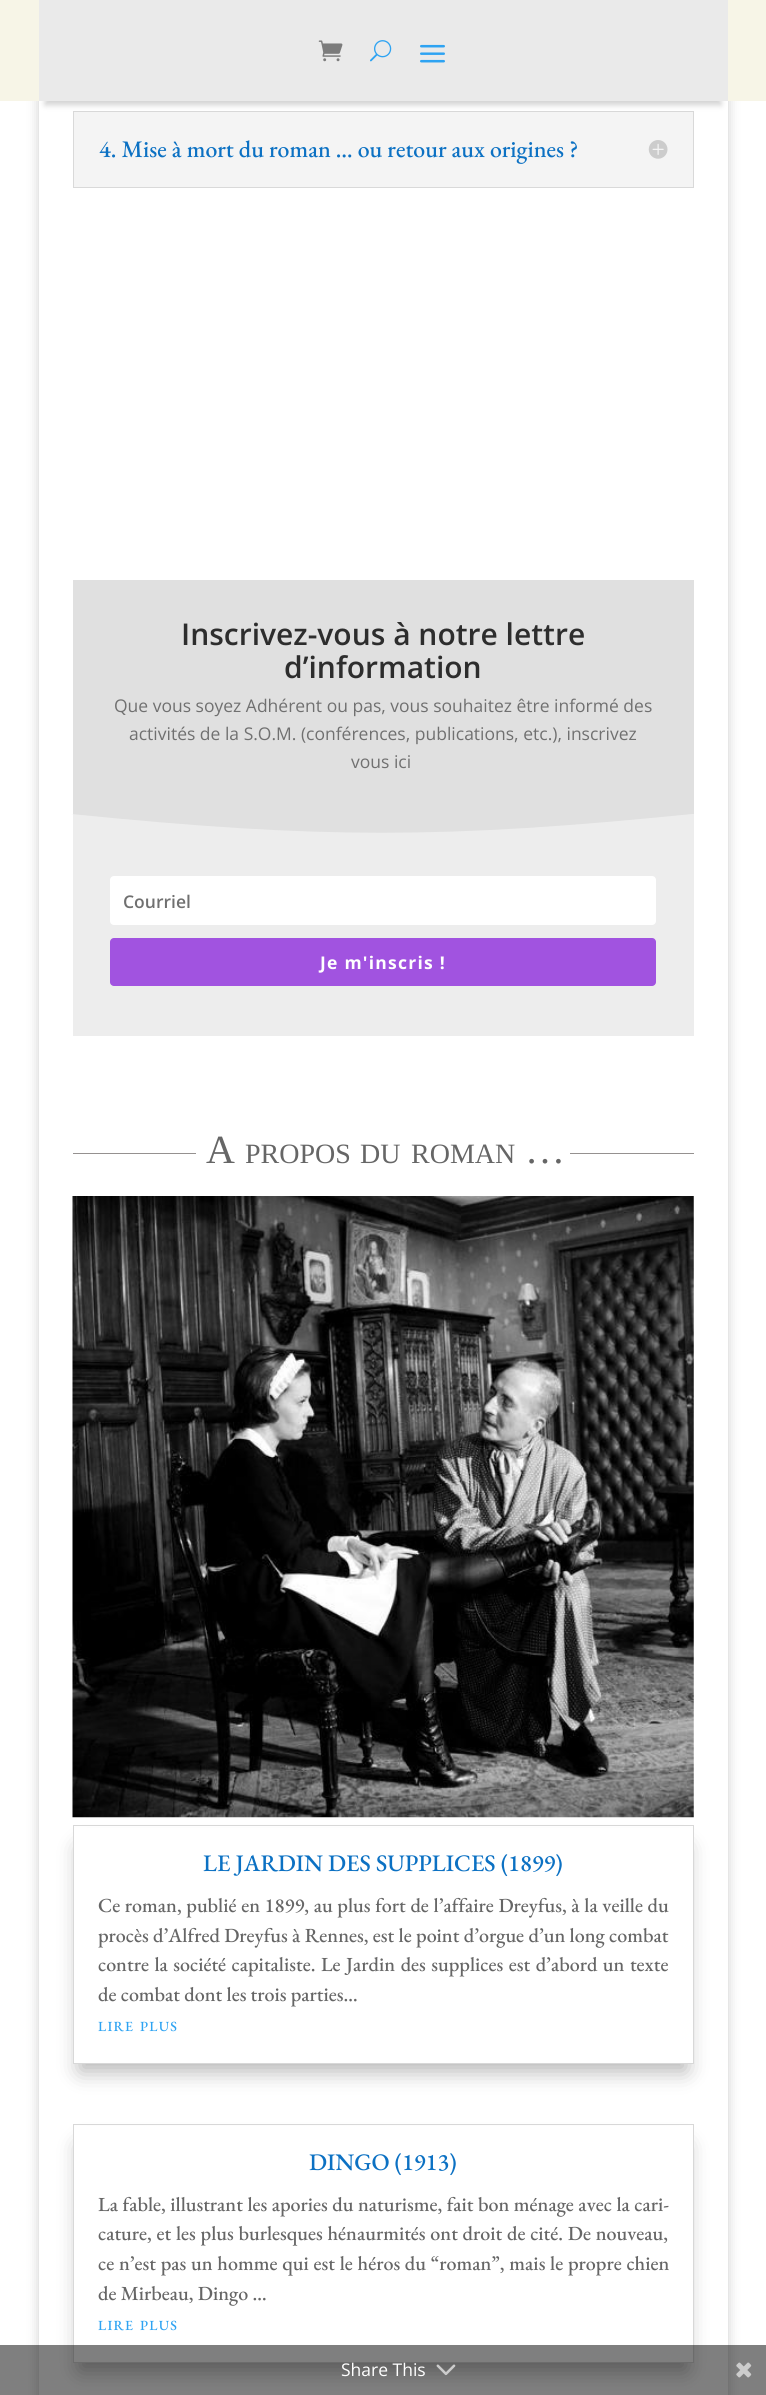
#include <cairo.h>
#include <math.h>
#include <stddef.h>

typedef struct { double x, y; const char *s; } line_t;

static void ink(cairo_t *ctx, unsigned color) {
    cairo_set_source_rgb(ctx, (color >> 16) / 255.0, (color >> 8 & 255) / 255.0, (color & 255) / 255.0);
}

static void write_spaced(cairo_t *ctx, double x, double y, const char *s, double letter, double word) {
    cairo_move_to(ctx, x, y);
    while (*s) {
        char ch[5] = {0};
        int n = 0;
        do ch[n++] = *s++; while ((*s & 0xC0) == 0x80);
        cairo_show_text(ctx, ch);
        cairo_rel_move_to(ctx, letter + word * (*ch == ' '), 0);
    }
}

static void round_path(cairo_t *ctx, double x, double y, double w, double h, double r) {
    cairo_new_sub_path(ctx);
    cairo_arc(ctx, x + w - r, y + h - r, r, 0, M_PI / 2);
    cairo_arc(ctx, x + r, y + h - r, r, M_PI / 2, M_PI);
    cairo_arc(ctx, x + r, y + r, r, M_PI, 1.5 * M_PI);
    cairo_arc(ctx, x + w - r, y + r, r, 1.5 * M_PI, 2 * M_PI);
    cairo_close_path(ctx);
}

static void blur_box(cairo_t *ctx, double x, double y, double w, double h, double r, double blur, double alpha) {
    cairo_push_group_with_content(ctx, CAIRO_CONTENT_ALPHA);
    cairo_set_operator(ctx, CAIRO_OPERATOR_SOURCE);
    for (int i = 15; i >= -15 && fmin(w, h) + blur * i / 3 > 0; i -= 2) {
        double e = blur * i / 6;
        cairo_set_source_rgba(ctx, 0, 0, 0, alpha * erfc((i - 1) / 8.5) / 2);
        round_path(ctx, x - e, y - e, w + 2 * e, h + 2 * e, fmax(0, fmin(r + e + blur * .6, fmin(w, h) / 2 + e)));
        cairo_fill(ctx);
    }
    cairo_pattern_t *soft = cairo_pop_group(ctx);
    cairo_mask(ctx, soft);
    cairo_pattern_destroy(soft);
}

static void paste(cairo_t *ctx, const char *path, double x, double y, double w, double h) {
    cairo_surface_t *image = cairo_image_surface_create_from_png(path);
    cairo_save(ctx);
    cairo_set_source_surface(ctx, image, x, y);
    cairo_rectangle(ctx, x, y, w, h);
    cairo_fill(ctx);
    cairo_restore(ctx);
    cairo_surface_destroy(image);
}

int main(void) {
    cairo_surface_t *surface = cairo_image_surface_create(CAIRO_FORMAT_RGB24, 766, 2395);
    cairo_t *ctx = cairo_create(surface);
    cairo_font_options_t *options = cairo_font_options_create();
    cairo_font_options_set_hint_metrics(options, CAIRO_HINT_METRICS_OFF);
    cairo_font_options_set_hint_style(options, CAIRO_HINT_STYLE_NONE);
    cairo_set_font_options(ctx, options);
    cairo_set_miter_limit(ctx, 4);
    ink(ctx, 0xFFFFFF);
    cairo_paint(ctx);
    ink(ctx, 0x000000);
    blur_box(ctx, 39, -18, 689, 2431, 0, 6, 0.2);
    ink(ctx, 0xF7F5E7);
    cairo_rectangle(ctx, 0, 0, 766, 101);
    cairo_fill(ctx);
    ink(ctx, 0xFFFFFF);
    cairo_rectangle(ctx, 39, 101, 689, 2294);
    cairo_fill(ctx);
    ink(ctx, 0xF4F4F4);
    cairo_rectangle(ctx, 73.5, 111.5, 620, 76);
    cairo_fill_preserve(ctx);
    ink(ctx, 0xD9D9D9);
    cairo_set_line_width(ctx, 1);
    cairo_stroke(ctx);
    ink(ctx, 0x686868);
    blur_box(ctx, 45, 16, 676, 89, 0, 3, 0.3);
    ink(ctx, 0xEAEAEA);
    cairo_rectangle(ctx, 39, 0, 689, 101);
    cairo_fill(ctx);
    paste(ctx, "media/1.png", 318, 40, 25, 22);
    paste(ctx, "media/2.png", 370, 40, 22, 22);
    paste(ctx, "media/3.png", 420, 44, 25, 19);
    cairo_select_font_face(ctx, "EB Garamond Medium", CAIRO_FONT_SLANT_NORMAL, CAIRO_FONT_WEIGHT_NORMAL);
    cairo_set_font_size(ctx, 23.75);
    ink(ctx, 0x0C71C3);
    cairo_move_to(ctx, 99, 157);
    cairo_show_text(ctx, "4. Mise à mort du roman … ou retour aux origines ?");
    paste(ctx, "media/4.png", 648, 140, 20, 19);
    ink(ctx, 0xE0E0E0);
    cairo_rectangle(ctx, 73, 580, 621, 234);
    cairo_fill(ctx);
    cairo_select_font_face(ctx, "Open Sans SemiBold", CAIRO_FONT_SLANT_NORMAL, CAIRO_FONT_WEIGHT_NORMAL);
    cairo_set_font_size(ctx, 30);
    ink(ctx, 0x2D2D2D);
    cairo_move_to(ctx, 181, 645);
    cairo_show_text(ctx, "Inscrivez-vous à notre lettre");
    cairo_move_to(ctx, 284, 678);
    cairo_show_text(ctx, "d’information");
    cairo_select_font_face(ctx, "Open Sans", CAIRO_FONT_SLANT_NORMAL, CAIRO_FONT_WEIGHT_NORMAL);
    cairo_set_font_size(ctx, 17.5);
    ink(ctx, 0x707070);
    {
        static const line_t items[] = {
            {114, 712, "Que vous soyez Adhérent ou pas, vous souhaitez être informé des"},
            {129, 740, "activités de la S.O.M. (conférences, publications, etc.), inscrivez"},
            {351, 768, "vous ici"},
        };
        for (size_t i = 0; i < sizeof items / sizeof *items; i++) {
            cairo_move_to(ctx, items[i].x, items[i].y);
            cairo_show_text(ctx, items[i].s);
        }
    }
    ink(ctx, 0xEDEDED);
    cairo_rectangle(ctx, 73, 814, 621, 222);
    cairo_fill(ctx);
    ink(ctx, 0xE0E0E0);
    cairo_new_path(ctx);
    cairo_move_to(ctx, 71, 814);
    cairo_curve_to(ctx, 320, 839, 444, 839, 692, 814);
    cairo_close_path(ctx);
    cairo_fill(ctx);
    ink(ctx, 0xFFFFFF);
    round_path(ctx, 110, 876, 546, 49, 4);
    cairo_fill(ctx);
    cairo_select_font_face(ctx, "Open Sans SemiBold", CAIRO_FONT_SLANT_NORMAL, CAIRO_FONT_WEIGHT_NORMAL);
    ink(ctx, 0x707070);
    cairo_move_to(ctx, 123, 908);
    cairo_show_text(ctx, "Courriel");
    ink(ctx, 0xA153E0);
    round_path(ctx, 110, 938, 546, 48, 4);
    cairo_fill(ctx);
    cairo_select_font_face(ctx, "Open Sans", CAIRO_FONT_SLANT_NORMAL, CAIRO_FONT_WEIGHT_BOLD);
    ink(ctx, 0xFFFFFF);
    write_spaced(ctx, 320, 969, "Je m'inscris !", 1.25, 0);
    ink(ctx, 0x959190);
    cairo_rectangle(ctx, 73, 1153, 123, 1);
    cairo_fill(ctx);
    cairo_select_font_face(ctx, "Liberation Serif", CAIRO_FONT_SLANT_NORMAL, CAIRO_FONT_WEIGHT_NORMAL);
    cairo_set_font_size(ctx, 40);
    ink(ctx, 0x666666);
    cairo_move_to(ctx, 206, 1163);
    cairo_show_text(ctx, "A");
    cairo_set_font_size(ctx, 28);
    {
        static const line_t items[] = {
            {245, 1163, "PROPOS"},
            {360, 1163, "DU"},
            {411, 1163, "ROMAN"},
        };
        for (size_t i = 0; i < sizeof items / sizeof *items; i++) {
            cairo_move_to(ctx, items[i].x, items[i].y);
            cairo_show_text(ctx, items[i].s);
        }
    }
    ink(ctx, 0x959190);
    cairo_rectangle(ctx, 570, 1153, 124, 1);
    cairo_fill(ctx);
    cairo_set_font_size(ctx, 40);
    ink(ctx, 0x666666);
    cairo_move_to(ctx, 525, 1163);
    cairo_show_text(ctx, "…");
    paste(ctx, "media/5.png", 72, 1196, 622, 622);
    ink(ctx, 0x000000);
    blur_box(ctx, 80, 1848, 606, 223, 0, 11, 0.3);
    ink(ctx, 0xFFFFFF);
    cairo_rectangle(ctx, 74, 1828, 619, 235);
    cairo_fill(ctx);
    cairo_rectangle(ctx, 73.5, 1825.5, 620, 238);
    ink(ctx, 0xD8D8D8);
    cairo_stroke(ctx);
    cairo_select_font_face(ctx, "EB Garamond Medium", CAIRO_FONT_SLANT_NORMAL, CAIRO_FONT_WEIGHT_NORMAL);
    cairo_set_font_size(ctx, 23.75);
    ink(ctx, 0x0C71C3);
    cairo_move_to(ctx, 203, 1871);
    cairo_show_text(ctx, "LE JARDIN DES SUPPLICES (1899)");
    cairo_set_font_size(ctx, 20);
    ink(ctx, 0x666666);
    write_spaced(ctx, 98, 1912, "Ce roman, publié en 1899, au plus fort de l’affaire Dreyfus, à la veille du", 0, 0.4);
    write_spaced(ctx, 98, 1942, "procès d’Alfred Dreyfus à Rennes, est le point d’orgue d’un long combat", 0, 0.1);
    write_spaced(ctx, 98, 1971, "contre la société capitaliste. Le Jardin des supplices est d’abord un texte", 0, 1.25);
    cairo_move_to(ctx, 98, 2001);
    cairo_show_text(ctx, "de combat dont les trois parties…");
    cairo_set_font_size(ctx, 14);
    ink(ctx, 0x2EA3F2);
    write_spaced(ctx, 98, 2031, "LIRE", 1.25, 0);
    write_spaced(ctx, 140, 2031, "PLUS", 1.25, 0);
    ink(ctx, 0x000000);
    blur_box(ctx, 80, 2146, 606, 224, 0, 11, 0.3);
    ink(ctx, 0xFFFFFF);
    cairo_rectangle(ctx, 74, 2126, 619, 236);
    cairo_fill(ctx);
    cairo_rectangle(ctx, 73.5, 2124.5, 620, 238);
    ink(ctx, 0xD8D8D8);
    cairo_stroke(ctx);
    cairo_set_font_size(ctx, 23.75);
    ink(ctx, 0x0C71C3);
    cairo_move_to(ctx, 309, 2170);
    cairo_show_text(ctx, "DINGO (1913)");
    cairo_set_font_size(ctx, 20);
    ink(ctx, 0x666666);
    write_spaced(ctx, 98, 2211, "La fable, illustrant les apories du naturisme, fait bon ménage avec la cari-", 0, 0.25);
    write_spaced(ctx, 98, 2240, "cature, et les plus burlesques hénaurmités ont droit de cité. De nouveau,", 0, 0.5);
    write_spaced(ctx, 98, 2270, "ce n’est pas un homme qui est le héros du “roman”, mais le propre chien", 0, 0.5);
    cairo_move_to(ctx, 98, 2300);
    cairo_show_text(ctx, "de Mirbeau, Dingo …");
    cairo_set_font_size(ctx, 14);
    ink(ctx, 0x2EA3F2);
    write_spaced(ctx, 98, 2330, "LIRE", 1.25, 0);
    write_spaced(ctx, 140, 2330, "PLUS", 1.25, 0);
    cairo_set_source_rgba(ctx, 0, 0, 0, 0.5);
    cairo_rectangle(ctx, 0, 2345, 766, 50);
    cairo_fill(ctx);
    cairo_select_font_face(ctx, "Open Sans", CAIRO_FONT_SLANT_NORMAL, CAIRO_FONT_WEIGHT_NORMAL);
    cairo_set_font_size(ctx, 17.5);
    ink(ctx, 0xFFFFFF);
    cairo_move_to(ctx, 341, 2376);
    cairo_show_text(ctx, "Share This");
    paste(ctx, "media/6.png", 436, 2364, 20, 12);
    paste(ctx, "media/7.png", 736, 2362, 16, 16);
    cairo_surface_write_to_png(surface, "image.png");
    cairo_font_options_destroy(options);
    cairo_destroy(ctx);
    cairo_surface_destroy(surface);
    return 0;
}
